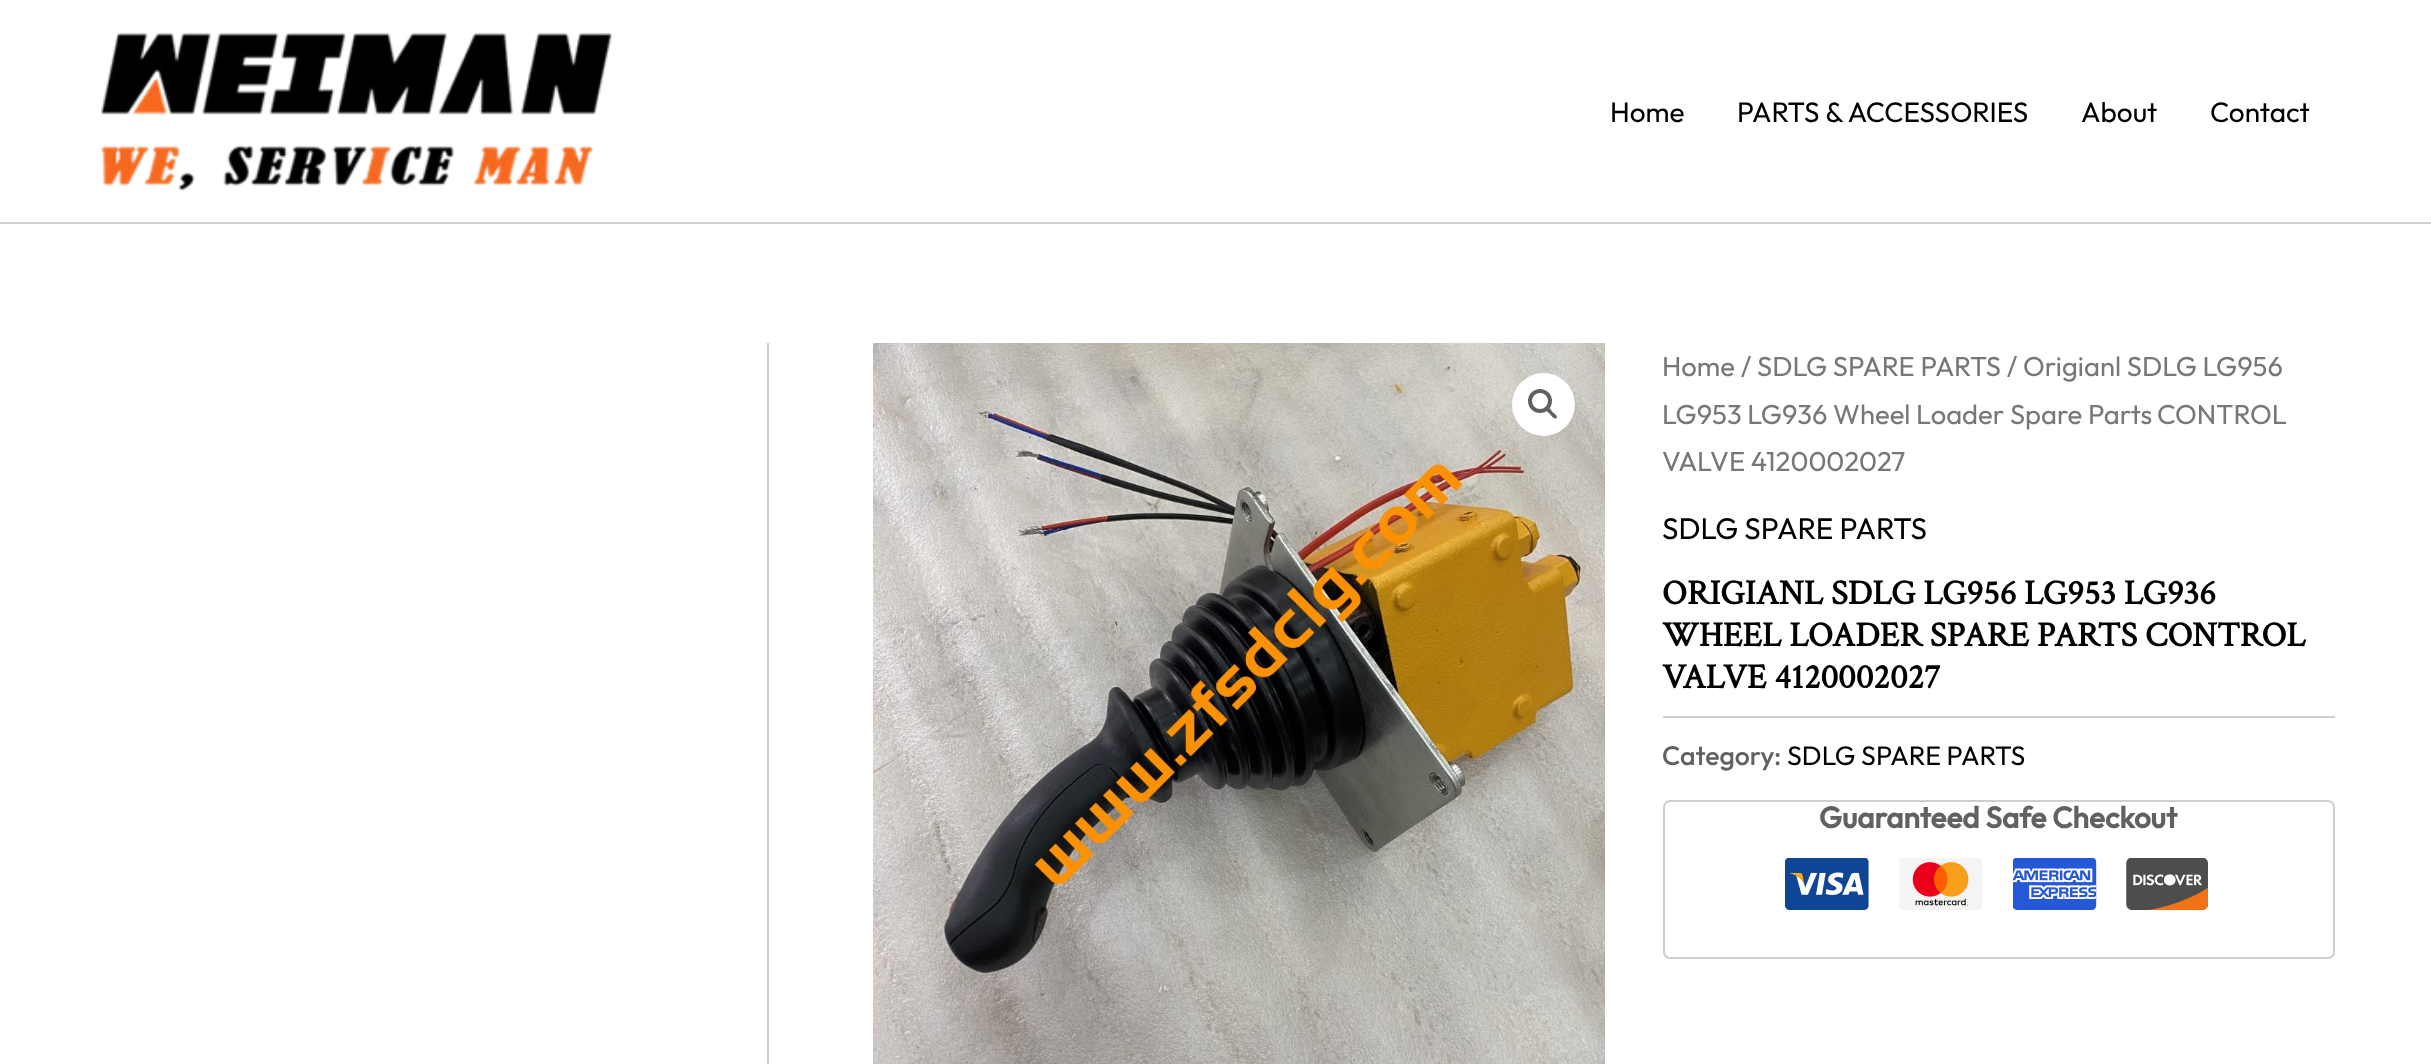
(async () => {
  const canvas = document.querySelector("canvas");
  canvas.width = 2431;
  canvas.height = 1064;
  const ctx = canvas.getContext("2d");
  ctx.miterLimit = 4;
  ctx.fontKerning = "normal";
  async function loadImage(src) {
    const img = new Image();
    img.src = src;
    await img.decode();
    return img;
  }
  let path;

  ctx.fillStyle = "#ffffff";
  ctx.fillRect(0, 0, 2431, 1064);
  ctx.fillStyle = "#cfcfcf";
  ctx.fillRect(0, 222, 2431, 2);
  ctx.drawImage(await loadImage("img/1.png"), 101, 32, 512, 159);
  ctx.fillRect(767, 343, 2, 721);
  ctx.drawImage(await loadImage("img/2.png"), 873, 343, 732, 721);
  ctx.fillStyle = "#ffffff";
  ctx.beginPath();
  ctx.arc(1543.5, 404.5, 31.5, 0, Math.PI * 2);
  ctx.fill();
  ctx.beginPath();
  ctx.arc(1540, 401, 10, 0, Math.PI * 2);
  ctx.strokeStyle = "#616161";
  ctx.lineWidth = 4;
  ctx.stroke();
  ctx.fillStyle = "#616161";
  path = new Path2D("M1546.5 408C1548.5 406 1551.5 410.5 1552.5 412C1553.5 413 1558.5 416 1556.5 418C1554.5 420 1551 415.5 1550 414C1549 413 1544.5 410 1546.5 408Z");
  ctx.fill(path);
  ctx.fillStyle = "#cfcfcf";
  ctx.fillRect(1663, 716, 672, 2);
  ctx.beginPath();
  ctx.roundRect(1664, 801, 670, 157, 6);
  ctx.strokeStyle = "#cfcfcf";
  ctx.lineWidth = 2;
  ctx.stroke();
  ctx.drawImage(await loadImage("img/3.png"), 1785, 858, 84, 52);
  ctx.drawImage(await loadImage("img/4.png"), 1899, 858, 83, 52);
  ctx.drawImage(await loadImage("img/5.png"), 2013, 858, 84, 52);
  ctx.drawImage(await loadImage("img/6.png"), 2126, 858, 82, 52);
  ctx.font = "28px Outfit";
  ctx.fillStyle = "#000000";
  for (const [text, x, y] of [
    ["Home", 1610, 122],
    ["PARTS & ACCESSORIES", 1737, 122],
    ["About", 2081, 122],
    ["Contact", 2210, 122],
  ]) {
    ctx.fillText(text, x, y);
  }
  ctx.font = "27.4px Outfit";
  ctx.fillStyle = "#777777";
  for (const [text, x, y] of [
    ["Home / SDLG SPARE PARTS / Origianl SDLG LG956", 1662, 376],
    ["LG953 LG936 Wheel Loader Spare Parts", 1662, 424],
    ["CONTROL", 2157, 424],
    ["VALVE 4120002027", 1662, 471],
  ]) {
    ctx.fillText(text, x, y);
  }
  ctx.font = "29.75px Outfit";
  ctx.fillStyle = "#000000";
  ctx.fillText("SDLG SPARE PARTS", 1662, 539);
  ctx.font = "bold 35px Crimson Text";
  for (const [text, x, y] of [
    ["ORIGIANL SDLG LG956 LG953 LG936", 1662, 604],
    ["WHEEL LOADER SPARE PARTS CONTROL", 1662, 646],
    ["VALVE 4120002027", 1662, 688],
  ]) {
    ctx.fillText(text, x, y);
  }
  ctx.font = "500 26.75px Outfit";
  ctx.fillStyle = "#616161";
  ctx.fillText("Category:", 1662, 765);
  ctx.font = "26.75px Outfit";
  ctx.fillStyle = "#000000";
  ctx.fillText("SDLG SPARE PARTS", 1787, 765);
  ctx.font = "bold 29.75px Outfit";
  ctx.fillStyle = "#616161";
  ctx.fillText("Guaranteed Safe Checkout", 1819, 828);
})();
